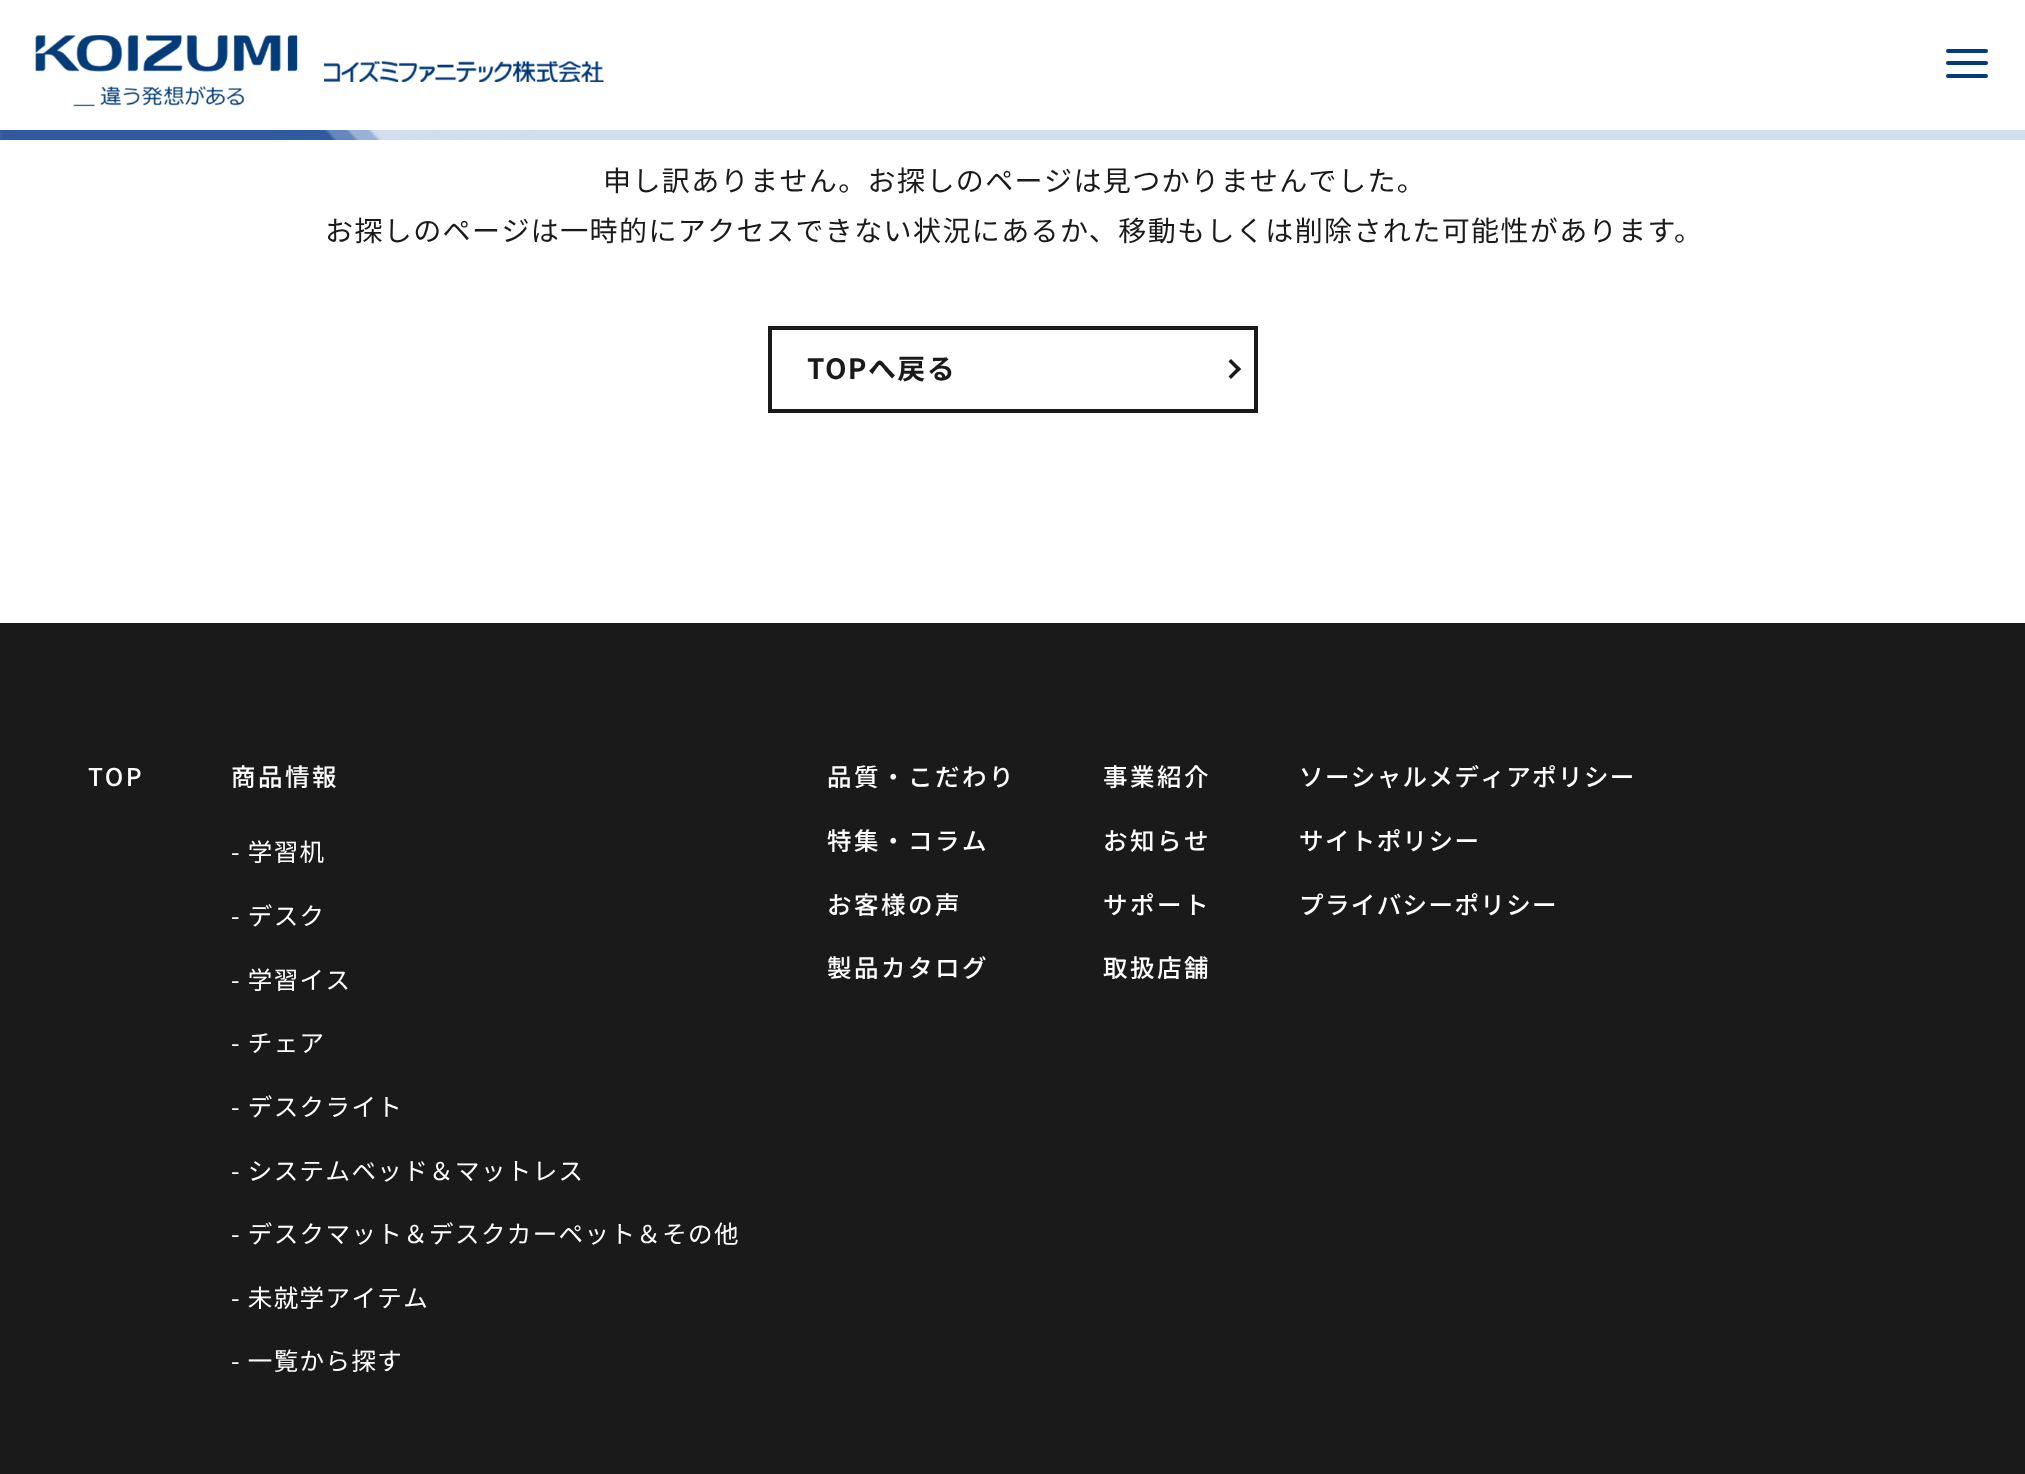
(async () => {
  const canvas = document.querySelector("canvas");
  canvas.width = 2025;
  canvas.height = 1474;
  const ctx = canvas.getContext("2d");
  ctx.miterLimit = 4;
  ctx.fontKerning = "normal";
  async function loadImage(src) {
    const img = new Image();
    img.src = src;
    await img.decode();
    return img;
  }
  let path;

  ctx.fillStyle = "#ffffff";
  ctx.fillRect(0, 0, 2025, 1474);
  ctx.drawImage(await loadImage("img/1.png"), 35, 35, 263, 72);
  ctx.drawImage(await loadImage("img/2.png"), 324, 61, 280, 21);
  ctx.fillStyle = "#043c79";
  ctx.beginPath();
  ctx.roundRect(1946, 49, 42, 4, 2);
  ctx.fill();
  ctx.beginPath();
  ctx.roundRect(1946, 61, 42, 4, 2);
  ctx.fill();
  ctx.beginPath();
  ctx.roundRect(1946, 74, 42, 4, 2);
  ctx.fill();
  ctx.drawImage(await loadImage("img/3.png"), 0, 130, 2025, 10);
  ctx.strokeStyle = "#1a1a1a";
  ctx.lineWidth = 4;
  ctx.strokeRect(770, 328, 486, 83);
  ctx.fillStyle = "#1a1a1a";
  path = new Path2D("M1231 359L1241 369L1238.5 371.5L1228.5 361.5Z");
  ctx.fill(path);
  path = new Path2D("M1238.5 366.5L1241 369L1231 379L1228.5 376.5Z");
  ctx.fill(path);
  ctx.fillRect(0, 623, 2025, 851);
  ctx.letterSpacing = "1.4px";
  ctx.font = "28px Noto Sans JP";
  ctx.fillText("申し訳ありません。お探しのページは見つかりませんでした。", 603, 191);
  ctx.fillText("お探しのページは一時的にアクセスできない状況にあるか、移動もしくは削除された可能性があります。", 325, 241);
  ctx.font = "bold 28px Noto Sans JP";
  ctx.fillText("TOPへ戻る", 807, 379);
  ctx.letterSpacing = "2.5px";
  ctx.font = "500 24.5px Noto Sans JP";
  ctx.fillStyle = "#ffffff";
  ctx.fillText("TOP", 88, 786);
  ctx.fillText("商品情報", 231, 786);
  ctx.letterSpacing = "1.4px";
  ctx.font = "24.5px Noto Sans JP";
  for (const [text, x, y] of [
    ["- 学習机", 231, 861],
    ["- デスク", 231, 925],
    ["- 学習イス", 231, 989],
    ["- チェア", 231, 1052],
    ["- デスクライト", 231, 1116],
    ["- システムベッド＆マットレス", 231, 1180],
    ["- デスクマット＆デスクカーペット＆その他", 231, 1243],
    ["- 未就学アイテム", 231, 1307],
    ["- 一覧から探す", 231, 1370],
  ]) {
    ctx.fillText(text, x, y);
  }
  ctx.letterSpacing = "2.5px";
  ctx.font = "500 24.5px Noto Sans JP";
  for (const [text, x, y] of [
    ["品質・こだわり", 827, 786],
    ["特集・コラム", 827, 850],
    ["お客様の声", 827, 914],
    ["製品カタログ", 827, 977],
    ["事業紹介", 1103, 786],
    ["お知らせ", 1103, 850],
    ["サポート", 1103, 914],
    ["取扱店舗", 1103, 977],
  ]) {
    ctx.fillText(text, x, y);
  }
  ctx.letterSpacing = "1.4px";
  for (const [text, x, y] of [
    ["ソーシャルメディアポリシー", 1299, 786],
    ["サイトポリシー", 1299, 850],
    ["プライバシーポリシー", 1299, 914],
  ]) {
    ctx.fillText(text, x, y);
  }
})();
